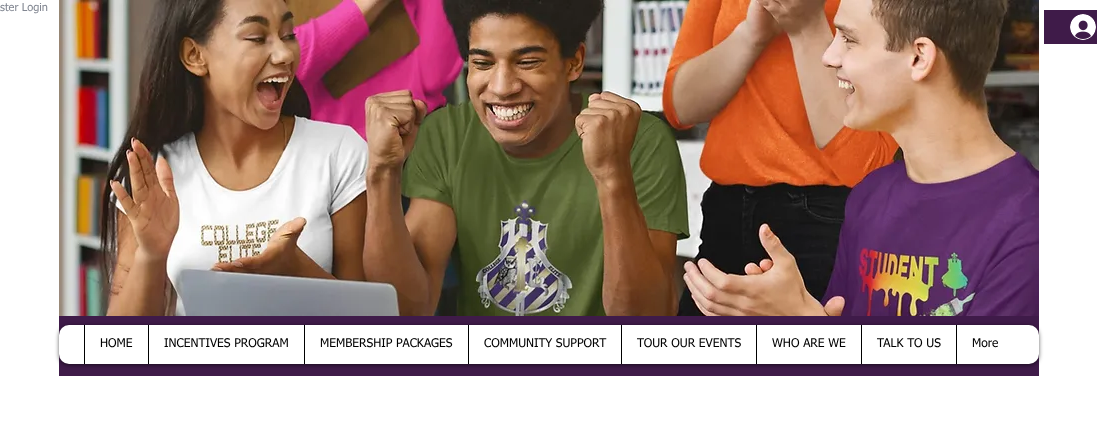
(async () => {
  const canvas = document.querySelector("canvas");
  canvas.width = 1097;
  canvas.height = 430;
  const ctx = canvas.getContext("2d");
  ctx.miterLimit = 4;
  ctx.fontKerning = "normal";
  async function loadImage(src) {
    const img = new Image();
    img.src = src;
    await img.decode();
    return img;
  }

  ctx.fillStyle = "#ffffff";
  ctx.fillRect(0, 0, 1097, 430);
  ctx.drawImage(await loadImage("img/1.png"), 59, 0, 980, 316);
  ctx.fillStyle = "#3f1b49";
  ctx.fillRect(1044, 10, 53, 34);
  ctx.drawImage(await loadImage("img/2.png"), 1070, 14, 26, 26);
  ctx.fillRect(59, 316, 980, 60);
  ctx.fillStyle = "rgba(0, 0, 0, 0.6)";
  ctx.filter = "blur(2px)";
  ctx.beginPath();
  ctx.roundRect(59, 326, 980, 39, 10);
  ctx.fill();
  ctx.filter = "none";
  ctx.fillStyle = "#ffffff";
  ctx.beginPath();
  ctx.roundRect(59, 325, 980, 39, 10);
  ctx.fill();
  for (const [x, y, w, h, color] of [
    [84, 325, 1, 39, "#000000"],
    [148, 325, 1, 39, "#000000"],
    [304, 325, 1, 39, "#000000"],
    [468, 325, 1, 39, "#000000"],
    [621, 325, 1, 39, "#000000"],
    [756, 325, 1, 39, "#000000"],
    [861, 325, 1, 39, "#000000"],
    [956, 325, 1, 39, "#000000"],
  ]) {
    ctx.fillStyle = color;
    ctx.fillRect(x, y, w, h);
  }
  ctx.font = "11px tahoma";
  ctx.fillStyle = "#818691";
  ctx.fillText("ster Login", 0, 11);
  ctx.font = "12px tahoma";
  ctx.fillStyle = "#000000";
  for (const [text, x, y] of [
    ["HOME", 100, 347],
    ["INCENTIVES PROGRAM", 164, 347],
    ["MEMBERSHIP PACKAGES", 320, 347],
    ["COMMUNITY SUPPORT", 484, 347],
    ["TOUR OUR EVENTS", 637, 347],
    ["WHO ARE WE", 772, 347],
    ["TALK TO US", 877, 347],
    ["More", 972, 347],
  ]) {
    ctx.fillText(text, x, y);
  }
})();
